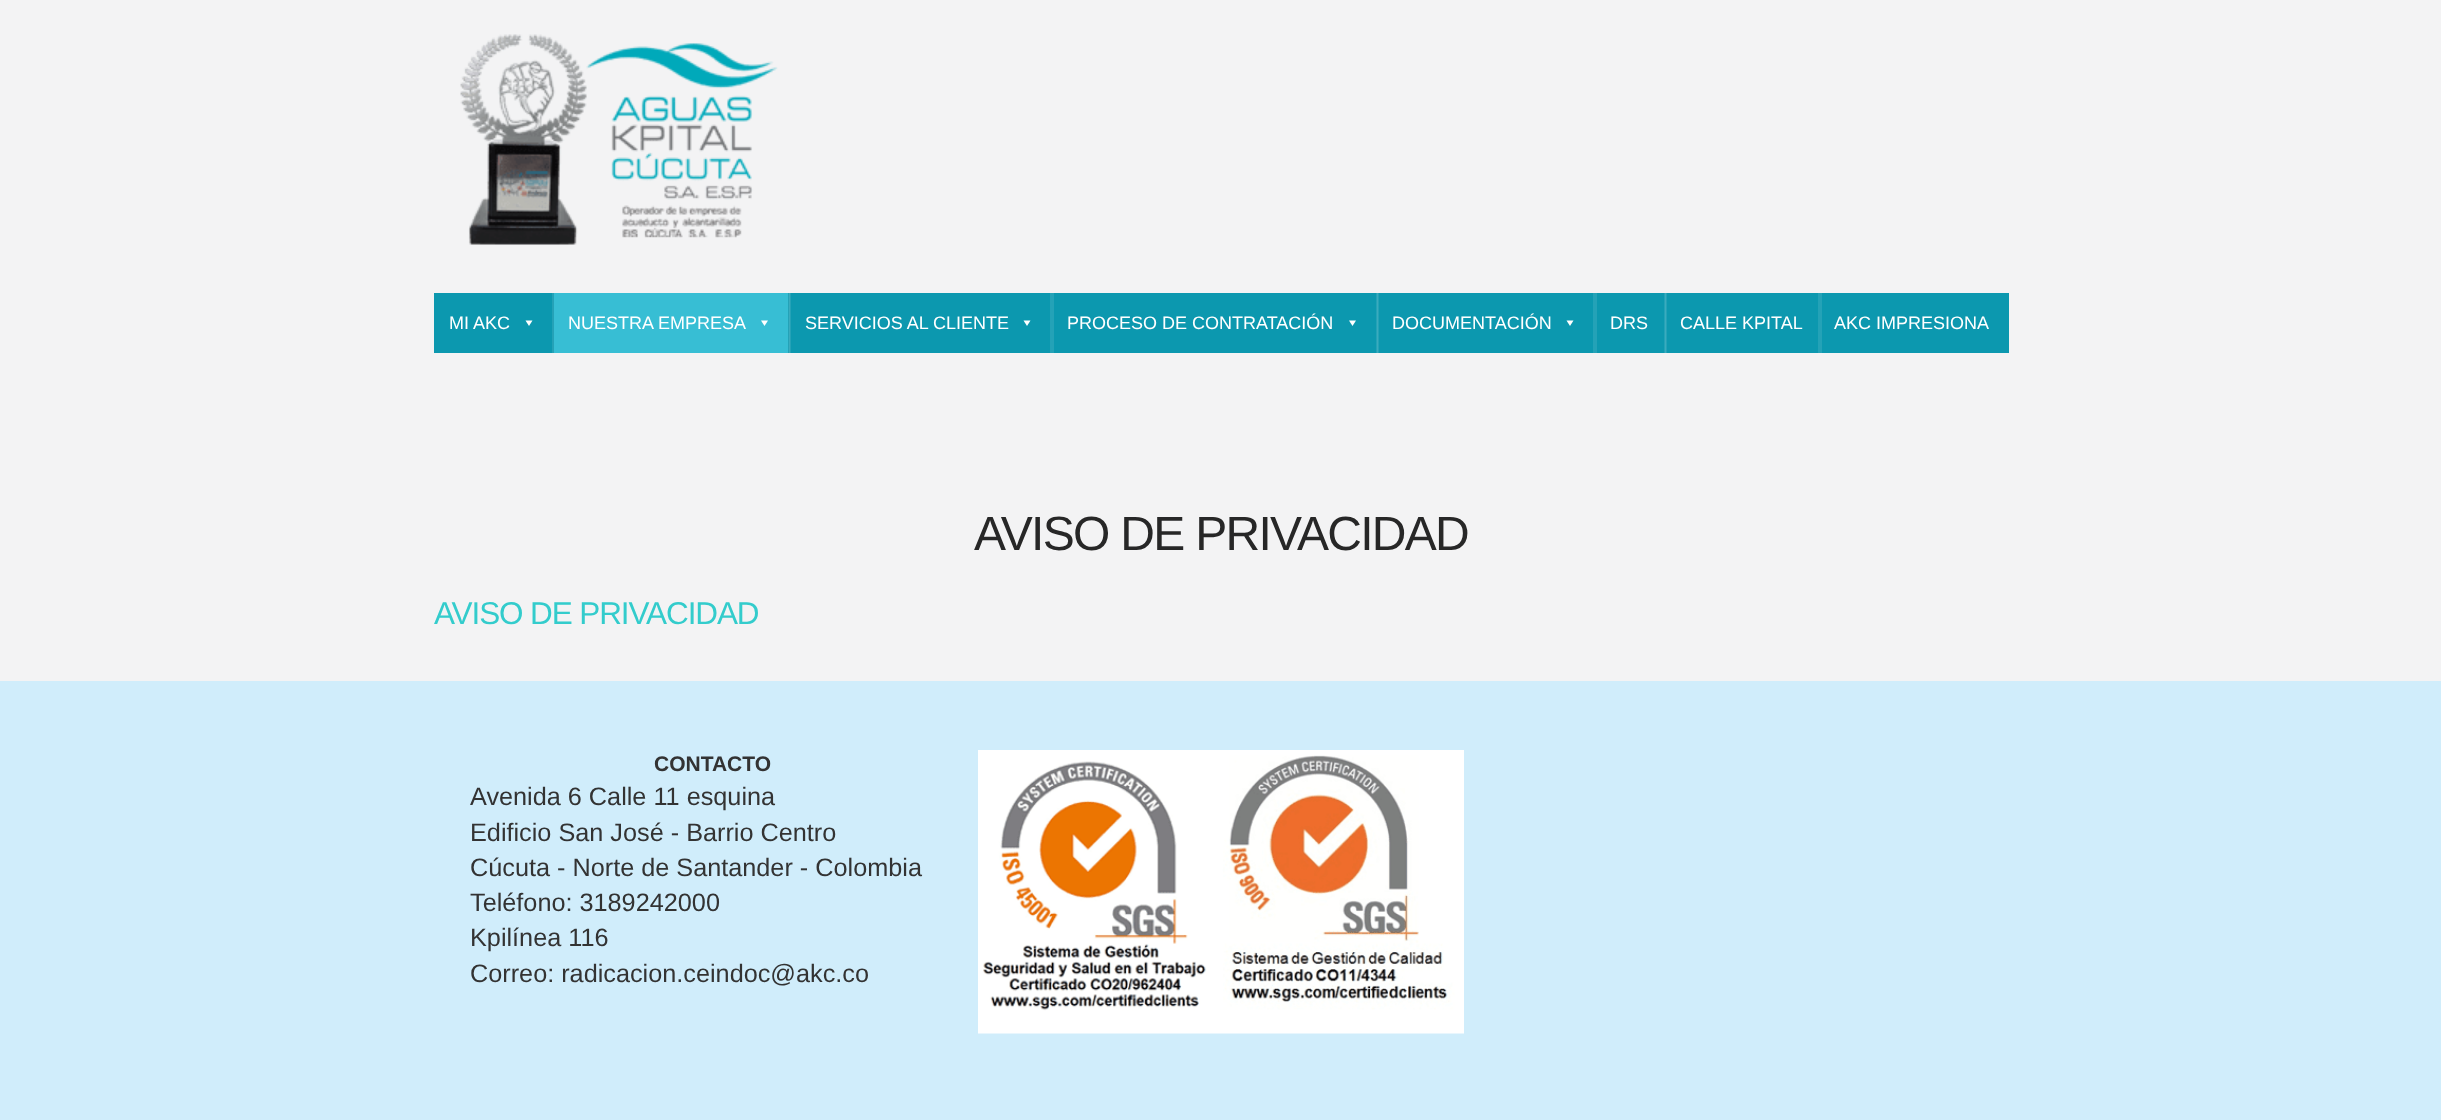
(async () => {
  const canvas = document.querySelector("canvas");
  canvas.width = 2441;
  canvas.height = 1120;
  const ctx = canvas.getContext("2d");
  ctx.miterLimit = 4;
  ctx.fontKerning = "normal";
  async function loadImage(src) {
    const img = new Image();
    img.src = src;
    await img.decode();
    return img;
  }
  let path;

  ctx.fillStyle = "#f3f3f4";
  ctx.fillRect(0, 0, 2441, 1120);
  ctx.drawImage(await loadImage("img/1.png"), 460, 34, 318, 211);
  for (const [x, y, w, h, color] of [
    [434, 293, 1575, 60, "#0c98af"],
    [1376, 293, 1, 60, "#24a2b7"],
    [788, 293, 1, 60, "#24a2b7"],
    [1664, 293, 1, 60, "#24a2b7"],
  ]) {
    ctx.fillStyle = color;
    ctx.fillRect(x, y, w, h);
  }
  ctx.fillStyle = "#ffffff";
  path = new Path2D("M532.5 320.5L529 326L525.5 320.5Z");
  ctx.fill(path);
  ctx.fillStyle = "#24a2b7";
  ctx.fillRect(552, 293, 2, 60);
  ctx.fillStyle = "#37bed4";
  ctx.fillRect(554, 293, 234, 60);
  ctx.fillStyle = "#ffffff";
  path = new Path2D("M768 320.5L764.5 326L761 320.5Z");
  ctx.fill(path);
  ctx.fillStyle = "#24a2b7";
  ctx.fillRect(790, 293, 1, 60);
  ctx.fillStyle = "#3aabbe";
  ctx.fillRect(789, 293, 1, 60);
  ctx.fillStyle = "#ffffff";
  path = new Path2D("M1030.5 320.5L1027 326L1023.5 320.5Z");
  ctx.fill(path);
  ctx.fillStyle = "#24a2b7";
  ctx.fillRect(1050, 293, 4, 60);
  ctx.fillStyle = "#ffffff";
  path = new Path2D("M1356 320.5L1352.5 326L1349 320.5Z");
  ctx.fill(path);
  ctx.fillStyle = "#24a2b7";
  ctx.fillRect(1378, 293, 1, 60);
  ctx.fillStyle = "#3aabbe";
  ctx.fillRect(1377, 293, 1, 60);
  ctx.fillStyle = "#ffffff";
  path = new Path2D("M1573.5 320.5L1570 326L1566.5 320.5Z");
  ctx.fill(path);
  for (const [x, y, w, h, color] of [
    [1593, 293, 4, 60, "#24a2b7"],
    [1666, 293, 1, 60, "#24a2b7"],
    [1665, 293, 1, 60, "#3aabbe"],
    [1818, 293, 4, 60, "#24a2b7"],
    [0, 681, 2441, 439, "#d0edfb"],
  ]) {
    ctx.fillStyle = color;
    ctx.fillRect(x, y, w, h);
  }
  ctx.drawImage(await loadImage("img/2.png"), 978, 750, 486, 284);
  ctx.font = "18px Liberation Sans";
  ctx.fillStyle = "#ffffff";
  for (const [text, x, y] of [
    ["MI AKC", 449, 329],
    ["NUESTRA EMPRESA", 568, 329],
    ["SERVICIOS AL CLIENTE", 805, 329],
    ["PROCESO DE CONTRATACIÓN", 1067, 329],
    ["DOCUMENTACIÓN", 1392, 329],
    ["DRS", 1610, 329],
    ["CALLE KPITAL", 1680, 329],
    ["AKC IMPRESIONA", 1834, 329],
  ]) {
    ctx.fillText(text, x, y);
  }
  ctx.letterSpacing = "-1.7px";
  ctx.font = "48px Liberation Sans";
  ctx.fillStyle = "#272727";
  ctx.fillText("AVISO DE PRIVACIDAD", 974, 550);
  ctx.letterSpacing = "-1.1px";
  ctx.font = "31.5px Liberation Sans";
  ctx.fillStyle = "#33cccc";
  ctx.fillText("AVISO DE PRIVACIDAD", 434, 624);
  ctx.letterSpacing = "0px";
  ctx.font = "bold 21px Liberation Sans";
  ctx.fillStyle = "#333333";
  ctx.fillText("CONTACTO", 654, 771);
  ctx.font = "25.25px Liberation Sans";
  for (const [text, x, y] of [
    ["Avenida 6 Calle 11 esquina", 470, 805],
    ["Edificio San José - Barrio Centro", 470, 841],
    ["Cúcuta - Norte de Santander - Colombia", 470, 876],
    ["Teléfono: 3189242000", 470, 911],
    ["Kpilínea 116", 470, 946],
    ["Correo: radicacion.ceindoc@akc.co", 470, 982],
  ]) {
    ctx.fillText(text, x, y);
  }
})();
